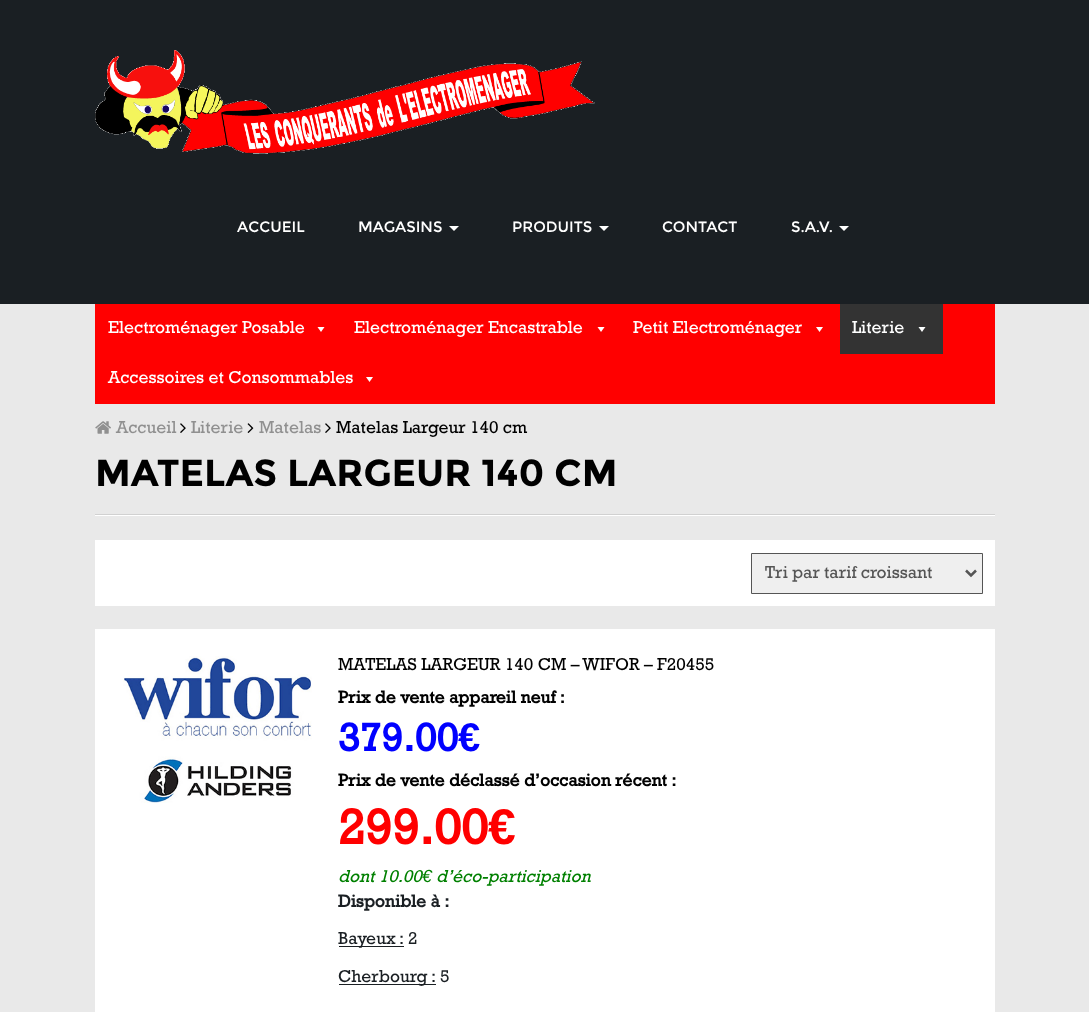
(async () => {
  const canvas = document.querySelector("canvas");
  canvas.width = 1089;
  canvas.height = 1012;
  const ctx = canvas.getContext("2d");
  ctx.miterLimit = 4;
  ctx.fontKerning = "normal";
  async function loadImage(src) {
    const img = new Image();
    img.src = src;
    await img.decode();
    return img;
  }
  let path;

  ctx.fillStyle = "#e9e9e9";
  ctx.fillRect(0, 0, 1089, 1012);
  ctx.fillStyle = "#1a1f23";
  ctx.fillRect(0, 0, 1089, 304);
  ctx.drawImage(await loadImage("img/1.png"), 95, 50, 500, 104);
  ctx.fillStyle = "#ffffff";
  path = new Path2D("M449 226H459L454 231Z");
  ctx.fill(path);
  path = new Path2D("M599 226H609L604 231Z");
  ctx.fill(path);
  path = new Path2D("M839 226H849L844 231Z");
  ctx.fill(path);
  ctx.fillStyle = "#ff0000";
  ctx.fillRect(95, 304, 900, 100);
  ctx.fillStyle = "#ffffff";
  path = new Path2D("M324.5 327L321 332L317.5 327Z");
  ctx.fill(path);
  path = new Path2D("M604.5 327L601 332L597.5 327Z");
  ctx.fill(path);
  path = new Path2D("M823 327L819.5 332L816 327Z");
  ctx.fill(path);
  ctx.fillStyle = "#333333";
  ctx.fillRect(840, 304, 103, 50);
  ctx.fillStyle = "#ffffff";
  path = new Path2D("M925.5 327L922 332L918.5 327Z");
  ctx.fill(path);
  path = new Path2D("M373 377L369.5 382L366 377Z");
  ctx.fill(path);
  ctx.drawImage(await loadImage("img/2.png"), 95, 421, 16, 13);
  ctx.drawImage(await loadImage("img/3.png"), 180, 423, 6, 10);
  ctx.drawImage(await loadImage("img/4.png"), 247, 423, 7, 10);
  ctx.drawImage(await loadImage("img/3.png"), 325, 423, 6, 10);
  for (const [x, y, w, h, color] of [
    [95, 515, 900, 1, "#ffffff"],
    [95, 514, 900, 1, "#d1d1d1"],
    [95, 540, 900, 66, "#ffffff"],
  ]) {
    ctx.fillStyle = color;
    ctx.fillRect(x, y, w, h);
  }
  ctx.fillStyle = "#efefef";
  ctx.beginPath();
  ctx.rect(751.5, 553.5, 231, 40);
  ctx.fill();
  ctx.strokeStyle = "#555555";
  ctx.stroke();
  path = new Path2D("M966 570.5L971 575.5L976 570.5");
  ctx.lineWidth = 2.5;
  ctx.stroke(path);
  ctx.fillStyle = "#ffffff";
  ctx.fillRect(95, 629, 900, 383);
  ctx.drawImage(await loadImage("img/5.png"), 123, 656, 189, 147);
  ctx.fillStyle = "#1a1f23";
  ctx.fillRect(339, 946, 65, 1);
  ctx.fillRect(339, 984, 97, 1);
  ctx.font = "15px Montserrat";
  ctx.fillStyle = "#ffffff";
  for (const [text, x, y] of [
    ["ACCUEIL", 237, 232],
    ["MAGASINS", 358, 232],
    ["PRODUITS", 512, 232],
    ["CONTACT", 662, 232],
    ["S.A.V.", 791, 232],
  ]) {
    ctx.fillText(text, x, y);
  }
  ctx.font = "17.5px Rockwell";
  for (const [text, x, y] of [
    ["Electroménager Posable", 108, 333],
    ["Electroménager Encastrable", 354, 333],
    ["Petit Electroménager", 633, 333],
    ["Literie", 852, 333],
    ["Accessoires et Consommables", 108, 383],
  ]) {
    ctx.fillText(text, x, y);
  }
  ctx.fillStyle = "#909090";
  for (const [text, x, y] of [
    ["Accueil", 116, 433],
    ["Literie", 191, 433],
    ["Matelas", 259, 433],
  ]) {
    ctx.fillText(text, x, y);
  }
  ctx.fillStyle = "#000000";
  ctx.fillText("Matelas Largeur 140 cm", 336, 433);
  ctx.font = "bold 37.5px Montserrat";
  ctx.fillText("MATELAS LARGEUR 140 CM", 95, 486);
  ctx.font = "17.5px Rockwell";
  ctx.fillStyle = "#555555";
  ctx.fillText("Tri par tarif croissant", 765, 578);
  ctx.fillStyle = "#000000";
  ctx.fillText("MATELAS LARGEUR 140 CM – WIFOR – F20455", 338, 670);
  ctx.font = "bold 17.5px Rockwell";
  ctx.fillText("Prix de vente appareil neuf :", 338, 703);
  ctx.font = "bold 40px Rockwell";
  ctx.fillStyle = "#0000ff";
  ctx.fillText("379.00", 338, 751);
  ctx.font = "bold 40px Liberation Sans";
  ctx.fillText("€", 458, 751);
  ctx.font = "bold 17.5px Rockwell";
  ctx.fillStyle = "#000000";
  ctx.fillText("Prix de vente déclassé d’occasion récent :", 338, 786);
  ctx.font = "bold 50px Rockwell";
  ctx.fillStyle = "#ff0000";
  ctx.fillText("299.00", 338, 844);
  ctx.font = "bold 50px Liberation Sans";
  ctx.fillText("€", 488, 844);
  ctx.font = "italic 17.5px Rockwell";
  ctx.fillStyle = "#008000";
  ctx.fillText("dont 10.00", 338, 882);
  ctx.font = "italic 17.5px Liberation Sans";
  ctx.fillText("€", 422, 882);
  ctx.font = "italic 17.5px Rockwell";
  ctx.fillText("d’éco-participation", 436, 882);
  ctx.font = "bold 17.5px Rockwell";
  ctx.fillStyle = "#1a1f23";
  ctx.fillText("Disponible à :", 338, 907);
  ctx.wordSpacing = "-1px";
  ctx.font = "17.5px Rockwell";
  ctx.fillText("Bayeux :", 338, 944);
  ctx.wordSpacing = "0px";
  ctx.fillText("2", 408, 944);
  ctx.wordSpacing = "-1px";
  ctx.fillText("Cherbourg :", 338, 982);
  ctx.wordSpacing = "0px";
  ctx.fillText("5", 440, 982);
})();
